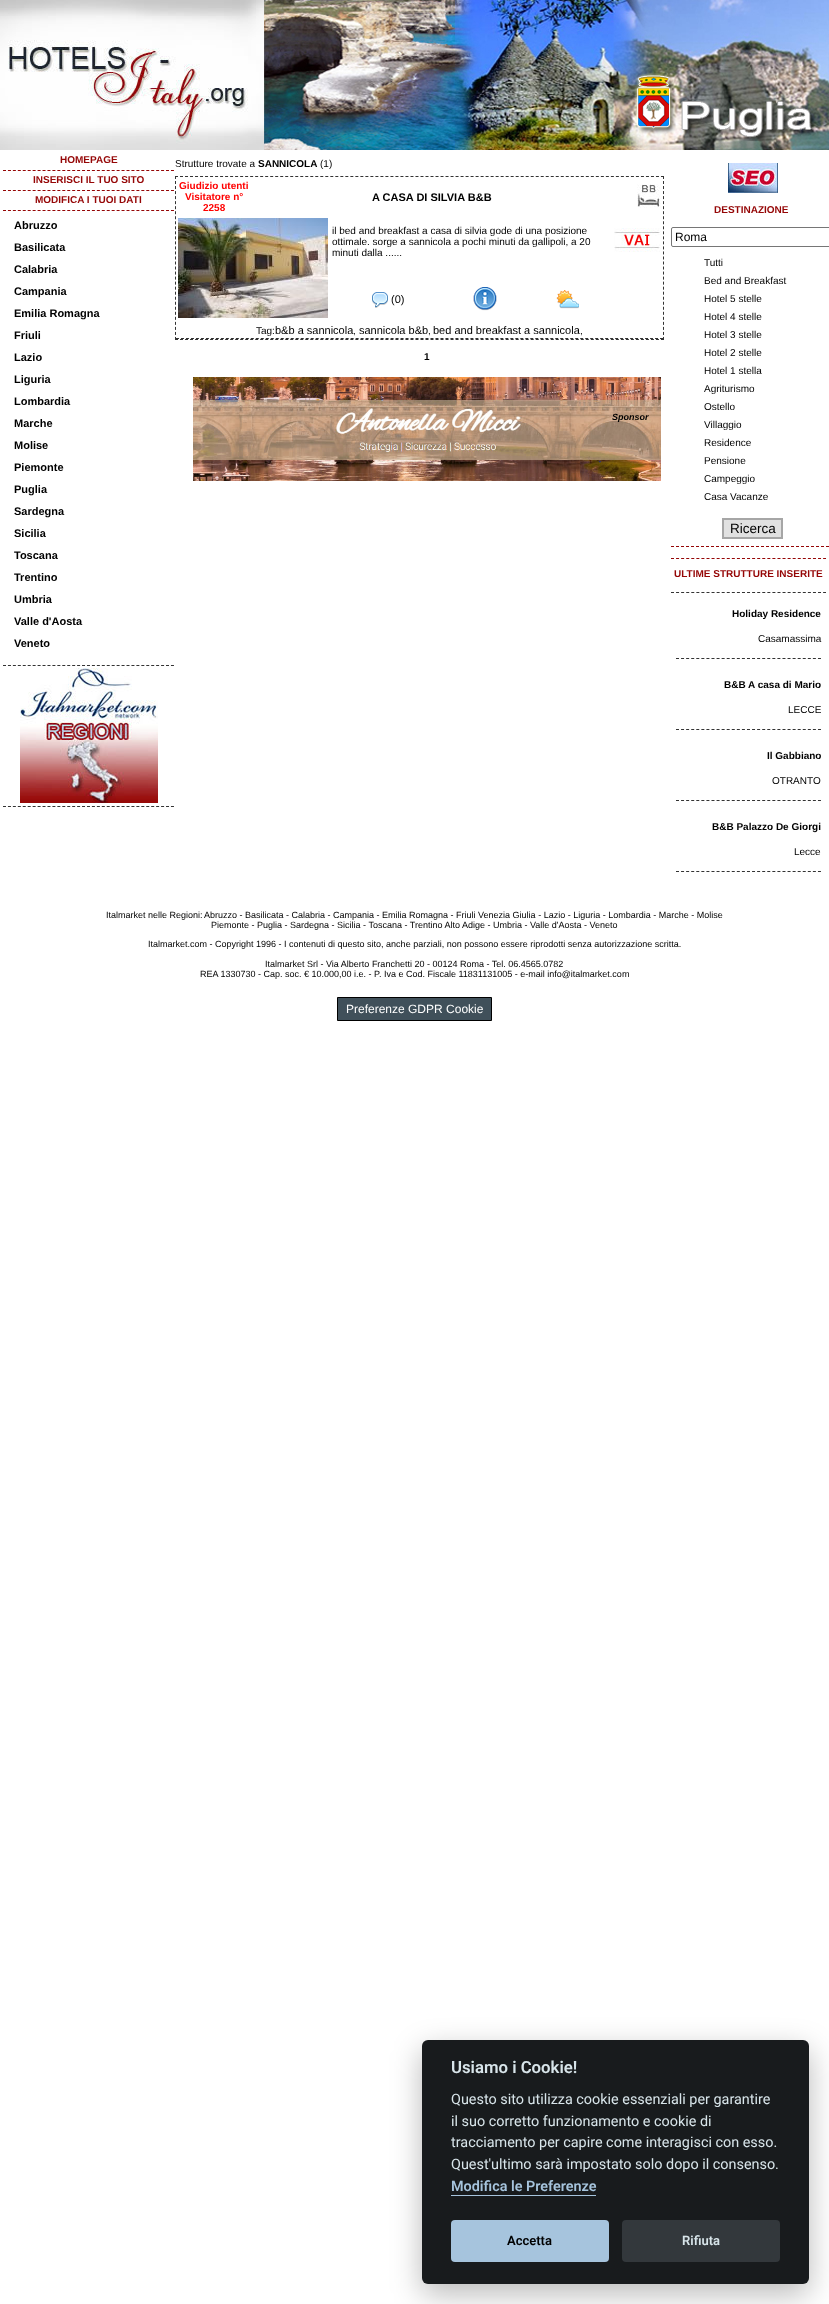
(async () => {
  const canvas = document.querySelector("canvas");
  canvas.width = 829;
  canvas.height = 2304;
  const ctx = canvas.getContext("2d");
  ctx.miterLimit = 4;
  ctx.fontKerning = "normal";
  async function loadImage(src) {
    const img = new Image();
    img.src = src;
    await img.decode();
    return img;
  }
  let path;

  ctx.fillStyle = "#ffffff";
  ctx.fillRect(0, 0, 829, 2304);
  ctx.drawImage(await loadImage("img/2.png"), 0, 0, 829, 150);
  ctx.drawImage(await loadImage("img/1.png"), 634, 72, 182, 69);
  path = new Path2D("M3 170.5H174");
  ctx.strokeStyle = "#950606";
  ctx.setLineDash([3, 1.94]);
  ctx.stroke(path);
  path = new Path2D("M3 190.5H174");
  ctx.stroke(path);
  path = new Path2D("M3 210.5H174");
  ctx.stroke(path);
  path = new Path2D("M3 665.5H174");
  ctx.strokeStyle = "#333333";
  ctx.stroke(path);
  path = new Path2D("M3 806.5H174");
  ctx.stroke(path);
  ctx.drawImage(await loadImage("img/3.png"), 20, 668, 138, 135);
  path = new Path2D("M175 176.5H664");
  ctx.setLineDash([3, 2.01]);
  ctx.stroke(path);
  path = new Path2D("M663.5 176V340");
  ctx.setLineDash([3, 2.03]);
  ctx.stroke(path);
  path = new Path2D("M175 339.5H664");
  ctx.setLineDash([3, 2.01]);
  ctx.stroke(path);
  path = new Path2D("M175.5 176V340");
  ctx.setLineDash([3, 2.03]);
  ctx.stroke(path);
  ctx.drawImage(await loadImage("img/4.png"), 637, 184, 24, 24);
  ctx.drawImage(await loadImage("img/5.png"), 178, 218, 150, 100);
  ctx.drawImage(await loadImage("img/6.png"), 614, 228, 47, 24);
  ctx.drawImage(await loadImage("img/7.png"), 372, 292, 16, 16);
  ctx.drawImage(await loadImage("img/8.png"), 473, 287, 24, 24);
  ctx.drawImage(await loadImage("img/9.png"), 556, 290, 23, 19);
  path = new Path2D("M176 338.5H663");
  ctx.setLineDash([3, 1.99]);
  ctx.stroke(path);
  ctx.drawImage(await loadImage("img/10.png"), 193, 377, 468, 104);
  ctx.drawImage(await loadImage("img/11.png"), 728, 163, 50, 30);
  ctx.beginPath();
  ctx.roundRect(671.5, 227.5, 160, 19, 1.5);
  ctx.strokeStyle = "#767676";
  ctx.setLineDash([]);
  ctx.stroke();
  ctx.fillStyle = "#e1e1e1";
  ctx.beginPath();
  ctx.rect(723, 519, 59, 19);
  ctx.fill();
  ctx.strokeStyle = "#a6a6a6";
  ctx.lineWidth = 2;
  ctx.stroke();
  path = new Path2D("M671 546.5H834");
  ctx.strokeStyle = "#950606";
  ctx.lineWidth = 1;
  ctx.setLineDash([3, 2]);
  ctx.stroke(path);
  path = new Path2D("M671 558.5H826");
  ctx.setLineDash([3, 2.07]);
  ctx.stroke(path);
  path = new Path2D("M671 592.5H826");
  ctx.strokeStyle = "#333333";
  ctx.stroke(path);
  path = new Path2D("M676 658.5H821");
  ctx.stroke(path);
  path = new Path2D("M676 729.5H821");
  ctx.stroke(path);
  path = new Path2D("M676 800.5H821");
  ctx.stroke(path);
  path = new Path2D("M676 871.5H821");
  ctx.stroke(path);
  ctx.fillStyle = "#40505a";
  ctx.beginPath();
  ctx.rect(337.5, 997.5, 154, 23);
  ctx.fill();
  ctx.strokeStyle = "#000000";
  ctx.setLineDash([]);
  ctx.stroke();
  ctx.fillStyle = "rgba(2, 2, 3, 0.28)";
  ctx.filter = "blur(15px)";
  ctx.beginPath();
  ctx.roundRect(422, 2050, 387, 244, 6);
  ctx.fill();
  ctx.filter = "none";
  ctx.fillStyle = "#181b1d";
  ctx.beginPath();
  ctx.roundRect(422, 2040, 387, 244, 6);
  ctx.fill();
  ctx.fillStyle = "#a6c4dd";
  ctx.fillRect(451, 2195, 145, 1);
  ctx.beginPath();
  ctx.roundRect(451, 2220, 158, 42, 4);
  ctx.fill();
  ctx.fillStyle = "#33383c";
  ctx.beginPath();
  ctx.roundRect(622, 2220, 158, 42, 4);
  ctx.fill();
  ctx.font = "bold 10px Liberation Sans";
  ctx.fillStyle = "#950606";
  for (const [text, x, y] of [
    ["HOMEPAGE", 60, 163],
    ["INSERISCI IL TUO SITO", 33, 183],
    ["MODIFICA I TUOI DATI", 35, 203],
  ]) {
    ctx.fillText(text, x, y);
  }
  ctx.font = "bold 11px Liberation Sans";
  ctx.fillStyle = "#000000";
  for (const [text, x, y] of [
    ["Abruzzo", 14, 229],
    ["Basilicata", 14, 251],
    ["Calabria", 14, 273],
    ["Campania", 14, 295],
    ["Emilia Romagna", 14, 317],
    ["Friuli", 14, 339],
    ["Lazio", 14, 361],
    ["Liguria", 14, 383],
    ["Lombardia", 14, 405],
    ["Marche", 14, 427],
    ["Molise", 14, 449],
    ["Piemonte", 14, 471],
    ["Puglia", 14, 493],
    ["Sardegna", 14, 515],
    ["Sicilia", 14, 537],
    ["Toscana", 14, 559],
    ["Trentino", 14, 581],
    ["Umbria", 14, 603],
    ["Valle d'Aosta", 14, 625],
    ["Veneto", 14, 647],
  ]) {
    ctx.fillText(text, x, y);
  }
  ctx.font = "10px Liberation Sans";
  ctx.fillText("Strutture trovate a", 175, 167);
  ctx.font = "bold 10px Liberation Sans";
  ctx.fillText("SANNICOLA", 258, 167);
  ctx.font = "10px Liberation Sans";
  ctx.fillText("(1)", 320, 167);
  ctx.font = "bold 10px Liberation Sans";
  ctx.fillStyle = "#ff0000";
  for (const [text, x, y] of [
    ["Giudizio utenti", 179, 189],
    ["Visitatore n°", 185, 200],
    ["2258", 203, 211],
  ]) {
    ctx.fillText(text, x, y);
  }
  ctx.font = "bold 11px Liberation Sans";
  ctx.fillStyle = "#000000";
  ctx.fillText("A CASA DI SILVIA B&B", 372, 201);
  ctx.font = "10px Liberation Sans";
  for (const [text, x, y] of [
    ["il bed and breakfast a casa di silvia gode di una posizione", 332, 234],
    ["ottimale. sorge a sannicola a pochi minuti da gallipoli, a 20", 332, 245],
    ["minuti dalla ......", 332, 256],
  ]) {
    ctx.fillText(text, x, y);
  }
  ctx.font = "11px Liberation Sans";
  ctx.fillText("(0)", 391, 303);
  ctx.font = "10px Liberation Sans";
  ctx.fillText("Tag:", 256, 334);
  ctx.font = "11px Liberation Sans";
  ctx.fillText("b&b a sannicola", 275, 334);
  ctx.font = "10px Liberation Sans";
  ctx.fillText(",", 353, 334);
  ctx.font = "11px Liberation Sans";
  ctx.fillText("sannicola b&b", 359, 334);
  ctx.font = "10px Liberation Sans";
  ctx.fillText(",", 428, 334);
  ctx.font = "11px Liberation Sans";
  ctx.fillText("bed and breakfast a sannicola", 433, 334);
  ctx.font = "10px Liberation Sans";
  ctx.fillText(",", 580, 334);
  ctx.font = "bold 10px Liberation Sans";
  ctx.fillText("1", 424, 360);
  ctx.font = "italic bold 9px Liberation Sans";
  ctx.fillText("Sponsor", 612, 420);
  ctx.font = "bold 10px Liberation Sans";
  ctx.fillStyle = "#950606";
  ctx.fillText("DESTINAZIONE", 714, 213);
  ctx.font = "12px Liberation Sans";
  ctx.fillStyle = "#000000";
  ctx.fillText("Roma", 675, 241);
  ctx.font = "10px Liberation Sans";
  for (const [text, x, y] of [
    ["Tutti", 704, 266],
    ["Bed and Breakfast", 704, 284],
    ["Hotel 5 stelle", 704, 302],
    ["Hotel 4 stelle", 704, 320],
    ["Hotel 3 stelle", 704, 338],
    ["Hotel 2 stelle", 704, 356],
    ["Hotel 1 stella", 704, 374],
    ["Agriturismo", 704, 392],
    ["Ostello", 704, 410],
    ["Villaggio", 704, 428],
    ["Residence", 704, 446],
    ["Pensione", 704, 464],
    ["Campeggio", 704, 482],
    ["Casa Vacanze", 704, 500],
  ]) {
    ctx.fillText(text, x, y);
  }
  ctx.font = "13.5px Liberation Sans";
  ctx.fillText("Ricerca", 730, 533);
  ctx.font = "bold 10px Liberation Sans";
  ctx.fillStyle = "#950606";
  ctx.fillText("ULTIME STRUTTURE INSERITE", 674, 577);
  ctx.fillStyle = "#000000";
  ctx.fillText("Holiday Residence", 732, 617);
  ctx.font = "10px Liberation Sans";
  ctx.fillText("Casamassima", 758, 642);
  ctx.font = "bold 10px Liberation Sans";
  ctx.fillText("B&B A casa di Mario", 724, 688);
  ctx.font = "10px Liberation Sans";
  ctx.fillText("LECCE", 788, 713);
  ctx.font = "bold 10px Liberation Sans";
  ctx.fillText("Il Gabbiano", 767, 759);
  ctx.font = "10px Liberation Sans";
  ctx.fillText("OTRANTO", 772, 784);
  ctx.font = "bold 10px Liberation Sans";
  ctx.fillText("B&B Palazzo De Giorgi", 712, 830);
  ctx.font = "10px Liberation Sans";
  ctx.fillText("Lecce", 794, 855);
  ctx.font = "9px Liberation Sans";
  for (const [text, x, y] of [
    ["Italmarket nelle Regioni:", 106, 918],
    ["Abruzzo - Basilicata - Calabria - Campania - Emilia Romagna - Friuli Venezia Giulia - Lazio - Liguria - Lombardia - Marche - Molise", 204, 918],
    ["Piemonte - Puglia - Sardegna - Sicilia - Toscana - Trentino Alto Adige - Umbria - Valle d'Aosta - Veneto", 211, 928],
    ["Italmarket.com - Copyright 1996 - I contenuti di questo sito, anche parziali, non possono essere riprodotti senza autorizzazione scritta.", 148, 947],
    ["Italmarket Srl - Via Alberto Franchetti 20 - 00124 Roma - Tel. 06.4565.0782", 265, 967],
    ["REA 1330730 - Cap. soc. € 10.000,00 i.e. - P. Iva e Cod. Fiscale 11831131005 - e-mail info@italmarket.com", 200, 977],
  ]) {
    ctx.fillText(text, x, y);
  }
  ctx.font = "12px Liberation Sans";
  ctx.fillStyle = "#ffffff";
  ctx.fillText("Preferenze GDPR Cookie", 346, 1013);
  ctx.font = "600 16.75px Roboto";
  ctx.fillStyle = "#d8e5ea";
  ctx.fillText("Usiamo i Cookie!", 451, 2073);
  ctx.font = "14.4px Roboto";
  for (const [text, x, y] of [
    ["Questo sito utilizza cookie essenziali per garantire", 451, 2104],
    ["il suo corretto funzionamento e cookie di", 451, 2126],
    ["tracciamento per capire come interagisci con esso.", 451, 2147],
    ["Quest'ultimo sarà impostato solo dopo il consenso.", 451, 2169],
  ]) {
    ctx.fillText(text, x, y);
  }
  ctx.font = "600 14.4px Roboto";
  ctx.fillStyle = "#a6c4dd";
  ctx.fillText("Modifica le Preferenze", 451, 2191);
  ctx.font = "600 13px Roboto";
  ctx.fillStyle = "#000000";
  ctx.fillText("Accetta", 507, 2245);
  ctx.fillStyle = "#d8e5ea";
  ctx.fillText("Rifiuta", 682, 2245);
})();
